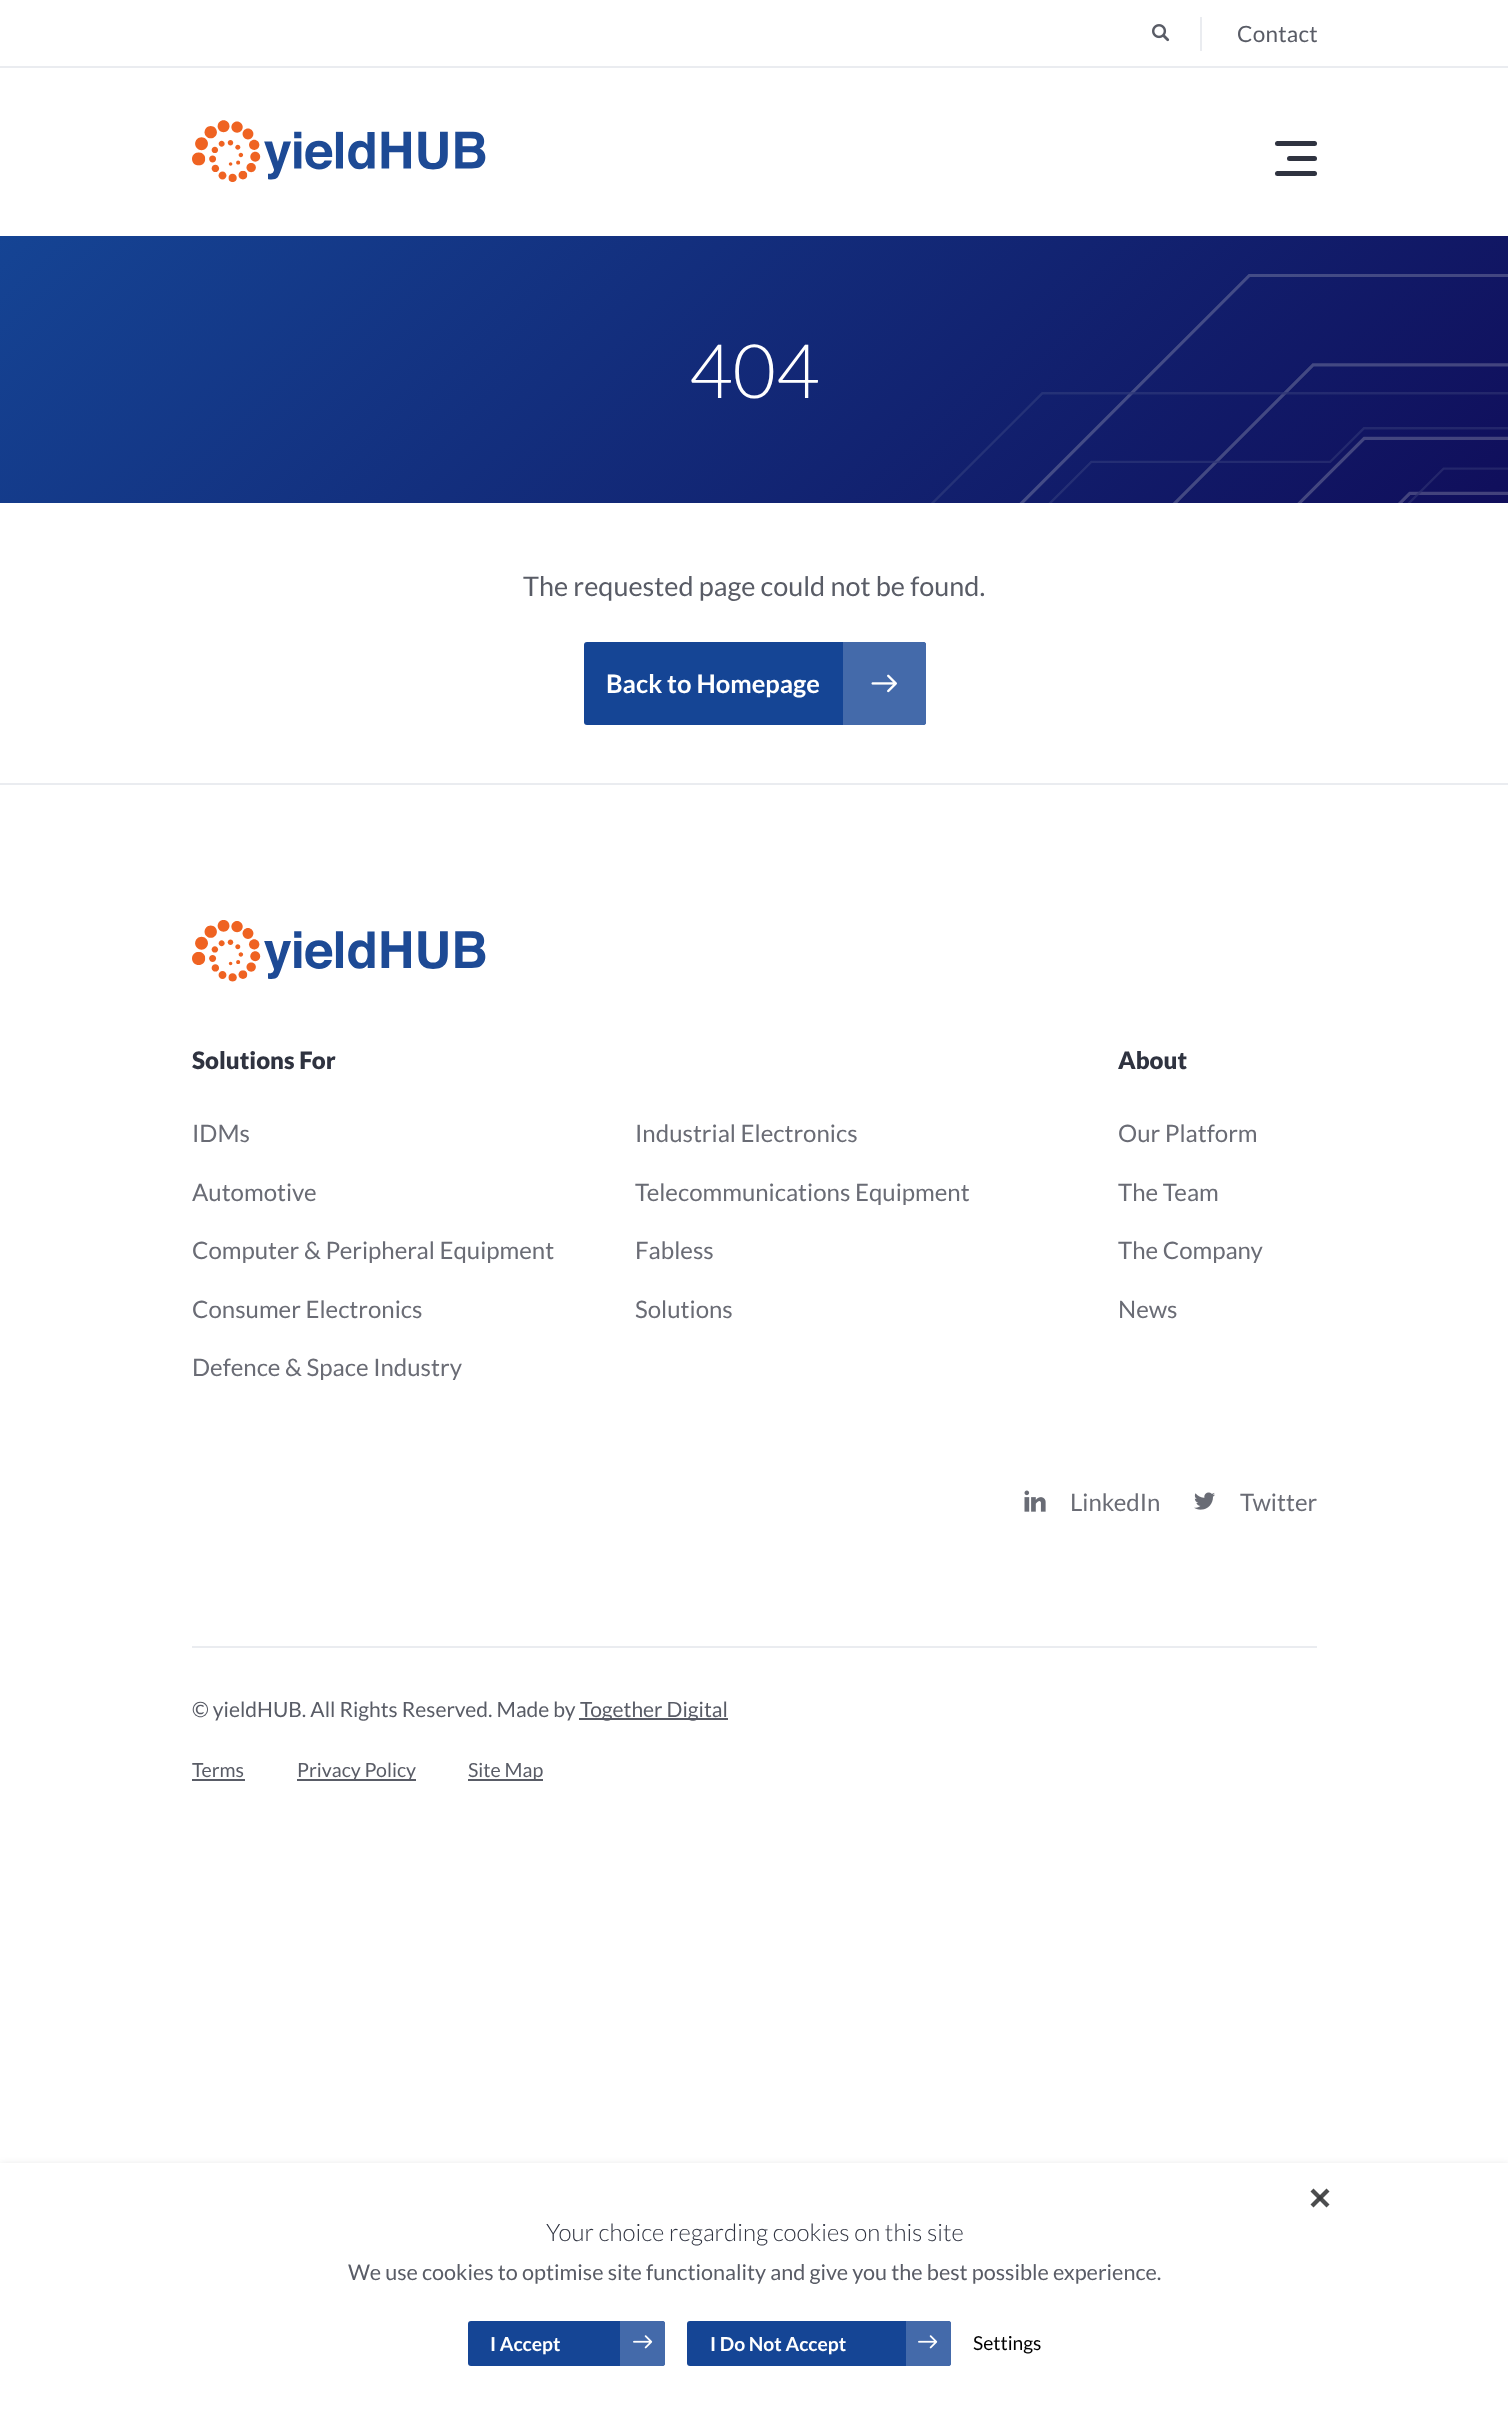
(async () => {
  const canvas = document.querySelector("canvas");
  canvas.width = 1508;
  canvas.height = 2418;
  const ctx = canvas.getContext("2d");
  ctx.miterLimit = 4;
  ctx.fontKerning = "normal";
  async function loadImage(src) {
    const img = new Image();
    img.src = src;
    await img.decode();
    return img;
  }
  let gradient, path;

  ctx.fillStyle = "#ffffff";
  ctx.fillRect(0, 0, 1508, 2418);
  ctx.fillStyle = "#eaecf0";
  ctx.fillRect(0, 66, 1508, 2);
  ctx.drawImage(await loadImage("img/1.png"), 1152, 24, 18, 18);
  ctx.fillRect(1200, 17, 2, 34);
  ctx.drawImage(await loadImage("img/2.png"), 192, 120, 294, 63);
  ctx.fillStyle = "#2f3340";
  ctx.beginPath();
  ctx.roundRect(1275, 141, 42, 5, 2.5);
  ctx.fill();
  ctx.beginPath();
  ctx.roundRect(1287, 156, 30, 5, 2.5);
  ctx.fill();
  ctx.beginPath();
  ctx.roundRect(1275, 171, 42, 5, 2.5);
  ctx.fill();
  gradient = ctx.createLinearGradient(1170, 817, 339, -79);
  gradient.addColorStop(0, "#100e5b");
  gradient.addColorStop(1, "#154494");
  gradient.addColorStop(1, "#154595");
  ctx.fillStyle = gradient;
  ctx.fillRect(0, 236, 1508, 267);
  ctx.drawImage(await loadImage("img/3.png"), 931, 274, 577, 229);
  ctx.fillStyle = "#154595";
  ctx.beginPath();
  ctx.roundRect(584, 642, 342, 83, 3);
  ctx.fill();
  ctx.fillStyle = "#446aaa";
  ctx.beginPath();
  ctx.roundRect(843, 642, 83, 83, [0, 3, 3, 0]);
  ctx.fill();
  ctx.drawImage(await loadImage("img/4.png"), 871, 674, 26, 19);
  ctx.fillStyle = "#eaecf0";
  ctx.fillRect(0, 783, 1508, 2);
  ctx.drawImage(await loadImage("img/5.png"), 192, 920, 294, 62);
  ctx.drawImage(await loadImage("img/6.png"), 1024, 1490, 22, 22);
  ctx.drawImage(await loadImage("img/7.png"), 1194, 1492, 21, 18);
  for (const [x, y, w, h, color] of [
    [192, 1646, 1125, 2, "#eaecf0"],
    [579, 1718, 149, 2, "#595c66"],
    [192, 1779, 53, 2, "#595c66"],
    [297, 1779, 119, 2, "#595c66"],
    [468, 1779, 75, 2, "#595c66"],
  ]) {
    ctx.fillStyle = color;
    ctx.fillRect(x, y, w, h);
  }
  ctx.fillStyle = "rgba(0, 0, 0, 0.08)";
  ctx.filter = "blur(3px)";
  ctx.beginPath();
  ctx.rect(0, 2163, 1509, 255);
  ctx.fill();
  ctx.filter = "none";
  ctx.fillStyle = "#ffffff";
  ctx.fillRect(0, 2163, 1508, 255);
  ctx.fillStyle = "#4d4e4f";
  path = new Path2D("M1313.5 2188.5L1329.5 2204.5L1326.5 2207.5L1310.5 2191.5Z");
  ctx.fill(path);
  ctx.fillStyle = "rgba(57, 58, 59, 0.9)";
  path = new Path2D("M1326.5 2188.5L1329.5 2191.5L1313.5 2207.5L1310.5 2204.5Z");
  ctx.fill(path);
  ctx.fillStyle = "#154595";
  ctx.beginPath();
  ctx.roundRect(468, 2321, 197, 45, 3);
  ctx.fill();
  ctx.fillStyle = "#446aaa";
  ctx.beginPath();
  ctx.roundRect(620, 2321, 45, 45, [0, 3, 3, 0]);
  ctx.fill();
  ctx.drawImage(await loadImage("img/8.png"), 633, 2335, 20, 14);
  ctx.fillStyle = "#154595";
  ctx.beginPath();
  ctx.roundRect(687, 2321, 264, 45, 3);
  ctx.fill();
  ctx.fillStyle = "#446aaa";
  ctx.beginPath();
  ctx.roundRect(906, 2321, 45, 45, [0, 3, 3, 0]);
  ctx.fill();
  ctx.drawImage(await loadImage("img/8.png"), 918, 2335, 20, 14);
  ctx.letterSpacing = "0.25px";
  ctx.font = "22.5px Lato";
  ctx.fillStyle = "#595c66";
  ctx.fillText("Contact", 1237, 42);
  ctx.letterSpacing = "0px";
  ctx.font = "300 75px Lato";
  ctx.fillStyle = "#ffffff";
  ctx.fillText("404", 689, 398);
  ctx.font = "27px Lato";
  ctx.fillStyle = "#595c66";
  ctx.fillText("The requested page could not be found.", 523, 596);
  ctx.font = "bold 25.5px Lato";
  ctx.fillStyle = "#ffffff";
  ctx.fillText("Back to Homepage", 606, 693);
  ctx.font = "900 24px Lato";
  ctx.fillStyle = "#2f3340";
  ctx.fillText("Solutions For", 192, 1069);
  ctx.font = "24px Lato";
  ctx.fillStyle = "#6a6c75";
  for (const [text, x, y] of [
    ["IDMs", 192, 1142],
    ["Industrial Electronics", 635, 1142],
    ["Automotive", 192, 1201],
    ["Telecommunications Equipment", 635, 1201],
    ["Computer & Peripheral Equipment", 192, 1259],
    ["Fabless", 635, 1259],
    ["Consumer Electronics", 192, 1318],
    ["Solutions", 635, 1318],
    ["Defence & Space Industry", 192, 1376],
  ]) {
    ctx.fillText(text, x, y);
  }
  ctx.font = "900 24px Lato";
  ctx.fillStyle = "#2f3340";
  ctx.fillText("About", 1118, 1069);
  ctx.font = "24px Lato";
  ctx.fillStyle = "#6a6c75";
  for (const [text, x, y] of [
    ["Our Platform", 1118, 1142],
    ["The Team", 1118, 1201],
    ["The Company", 1118, 1259],
    ["News", 1118, 1318],
    ["LinkedIn", 1070, 1511],
    ["Twitter", 1240, 1511],
  ]) {
    ctx.fillText(text, x, y);
  }
  ctx.font = "21px Lato";
  ctx.fillStyle = "#595c66";
  ctx.fillText("© yieldHUB. All Rights Reserved. Made by", 192, 1717);
  ctx.fillText("Together Digital", 580, 1717);
  ctx.font = "19.5px Lato";
  for (const [text, x, y] of [
    ["Terms", 192, 1777],
    ["Privacy Policy", 297, 1777],
    ["Site Map", 468, 1777],
  ]) {
    ctx.fillText(text, x, y);
  }
  ctx.font = "300 24px Lato";
  ctx.fillStyle = "#2f3340";
  ctx.fillText("Your choice regarding cookies on this site", 546, 2241);
  ctx.font = "21.6px Lato";
  ctx.fillStyle = "#595c66";
  ctx.fillText("We use cookies to optimise site functionality and give you the best possible experience.", 348, 2280);
  ctx.font = "bold 19.25px Lato";
  ctx.fillStyle = "#ffffff";
  ctx.fillText("I Accept", 490, 2351);
  ctx.fillText("I Do Not Accept", 710, 2351);
  ctx.font = "19.25px Lato";
  ctx.fillStyle = "#000000";
  ctx.fillText("Settings", 973, 2350);
})();
